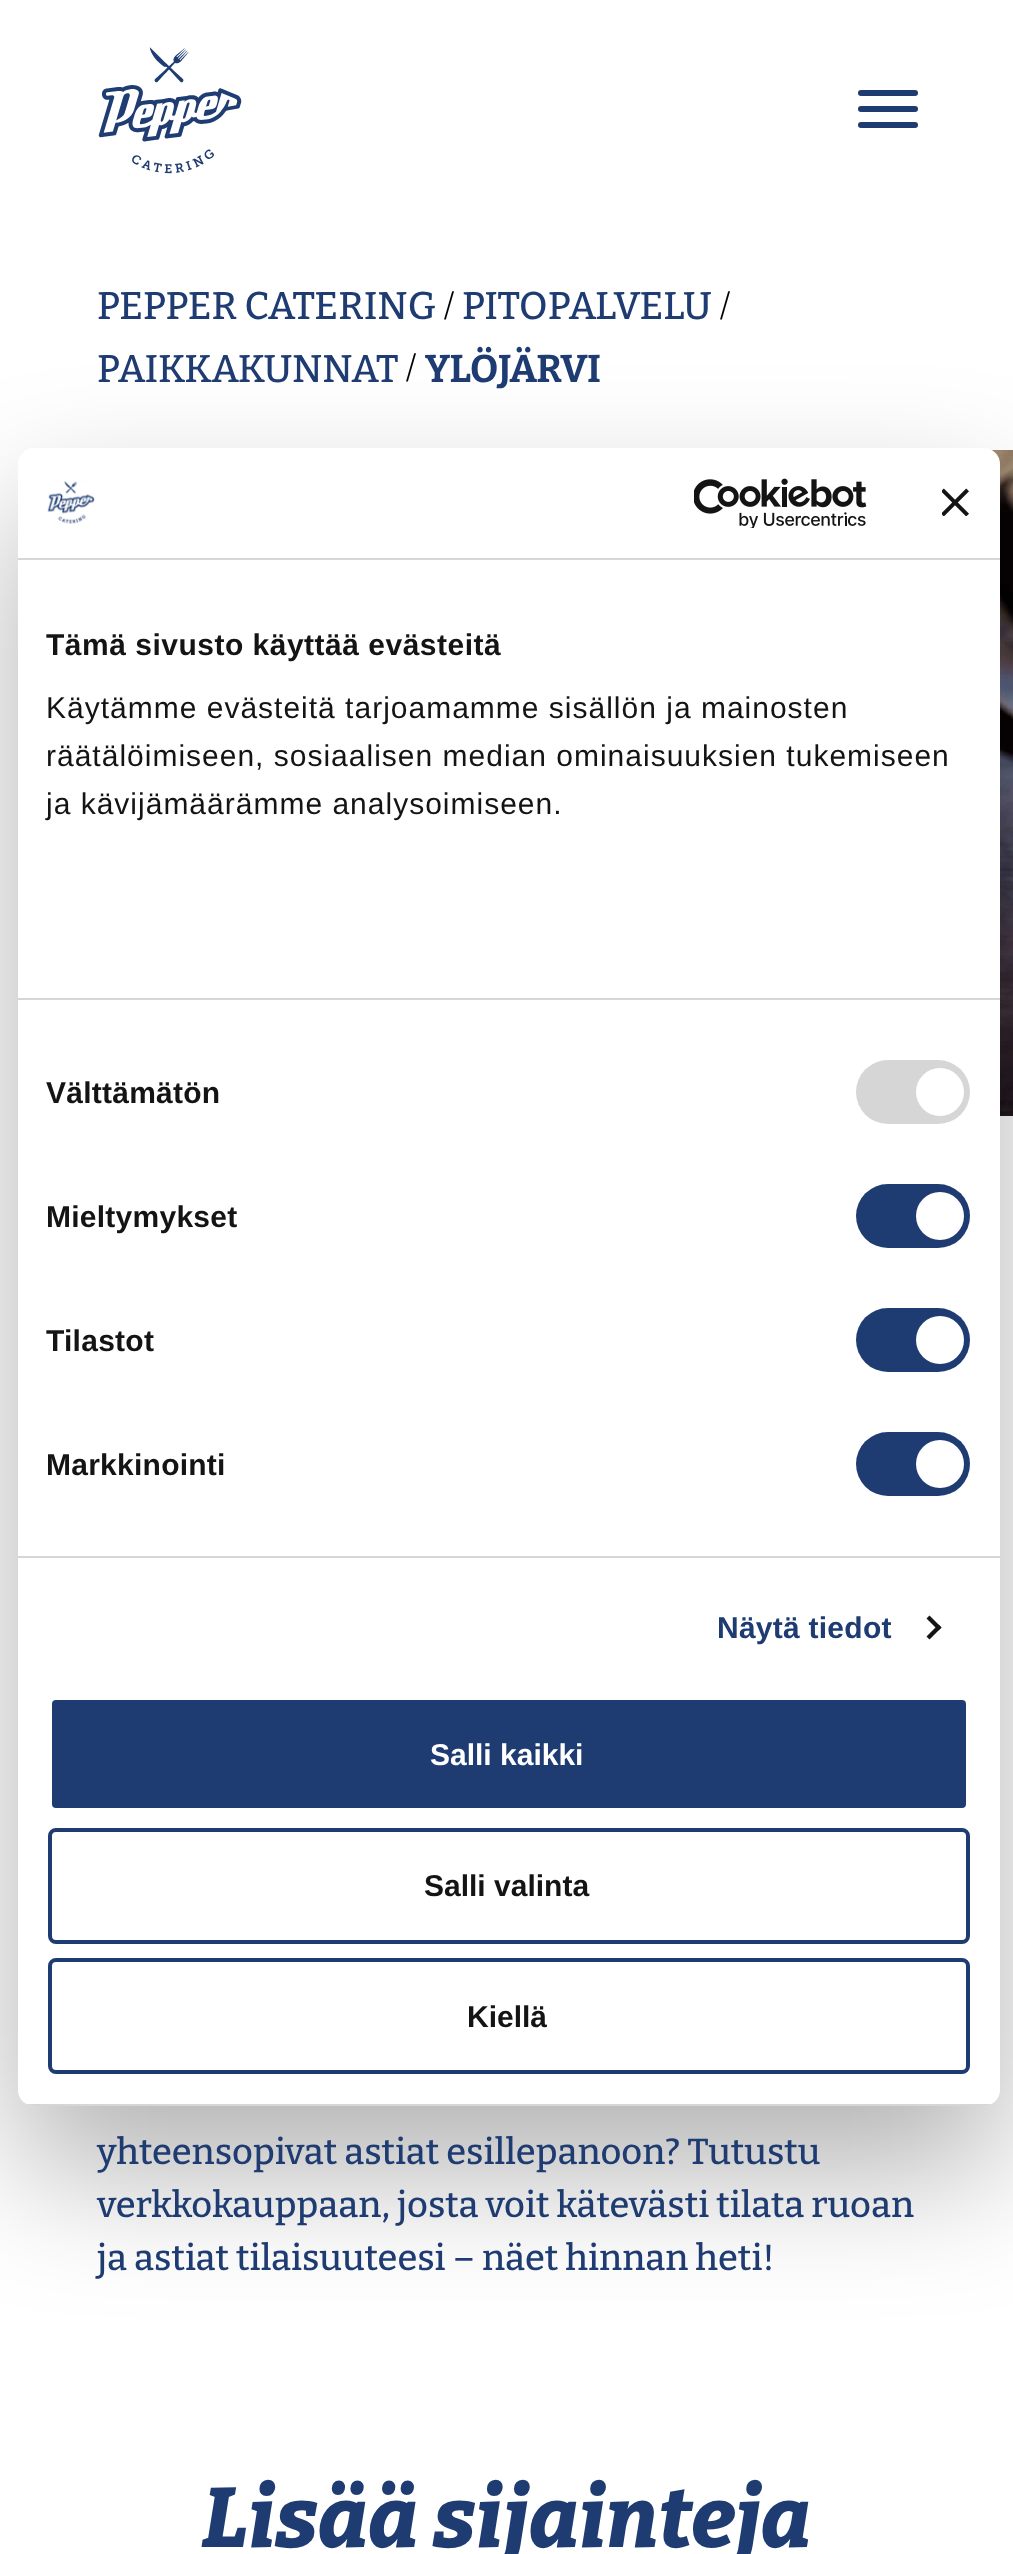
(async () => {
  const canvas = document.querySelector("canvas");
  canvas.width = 1013;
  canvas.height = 2554;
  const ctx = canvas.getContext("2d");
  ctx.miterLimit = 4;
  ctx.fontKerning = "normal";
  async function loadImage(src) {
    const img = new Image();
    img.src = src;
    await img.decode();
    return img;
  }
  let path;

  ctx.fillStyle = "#ffffff";
  ctx.fillRect(0, 0, 1013, 2554);
  ctx.drawImage(await loadImage("img/1.png"), 98, 47, 144, 127);
  ctx.fillStyle = "#1e3c72";
  ctx.beginPath();
  ctx.roundRect(858, 90, 60, 6, 3);
  ctx.fill();
  ctx.beginPath();
  ctx.roundRect(858, 106, 60, 6, 3);
  ctx.fill();
  ctx.beginPath();
  ctx.roundRect(858, 122, 60, 6, 3);
  ctx.fill();
  ctx.drawImage(await loadImage("img/2.png"), 991, 450, 22, 666);
  ctx.fillStyle = "rgba(0, 0, 0, 0.3)";
  ctx.filter = "blur(68px)";
  ctx.beginPath();
  ctx.roundRect(18, 512, 982, 1658, 16);
  ctx.fill();
  ctx.filter = "none";
  ctx.fillStyle = "#ffffff";
  ctx.beginPath();
  ctx.roundRect(18, 448, 982, 1658, 16);
  ctx.fill();
  ctx.fillStyle = "#d6d6d6";
  ctx.fillRect(18, 558, 982, 2);
  ctx.drawImage(await loadImage("img/3.png"), 47, 480, 48, 44);
  ctx.drawImage(await loadImage("img/4.png"), 694, 478, 173, 50);
  ctx.drawImage(await loadImage("img/5.png"), 942, 488, 27, 28);
  ctx.fillRect(18, 998, 982, 2);
  ctx.fillRect(18, 1556, 982, 2);
  ctx.beginPath();
  ctx.roundRect(856, 1060, 114, 64, 32);
  ctx.fill();
  ctx.fillStyle = "#ffffff";
  ctx.beginPath();
  ctx.arc(940, 1092, 24, 0, Math.PI * 2);
  ctx.fill();
  ctx.fillStyle = "#1e3c72";
  ctx.beginPath();
  ctx.roundRect(856, 1184, 114, 64, 32);
  ctx.fill();
  ctx.fillStyle = "#ffffff";
  ctx.beginPath();
  ctx.arc(940, 1216, 24, 0, Math.PI * 2);
  ctx.fill();
  ctx.fillStyle = "#1e3c72";
  ctx.beginPath();
  ctx.roundRect(856, 1308, 114, 64, 32);
  ctx.fill();
  ctx.fillStyle = "#ffffff";
  ctx.beginPath();
  ctx.arc(940, 1340, 24, 0, Math.PI * 2);
  ctx.fill();
  ctx.fillStyle = "#1e3c72";
  ctx.beginPath();
  ctx.roundRect(856, 1432, 114, 64, 32);
  ctx.fill();
  ctx.fillStyle = "#ffffff";
  ctx.beginPath();
  ctx.arc(940, 1464, 24, 0, Math.PI * 2);
  ctx.fill();
  ctx.fillStyle = "#141414";
  path = new Path2D("M929.5 1615.5L941.5 1627.5L938.5 1630.5L926.5 1618.5Z");
  ctx.fill(path);
  path = new Path2D("M938.5 1624.5L941.5 1627.5L929.5 1639.5L926.5 1636.5Z");
  ctx.fill(path);
  ctx.save();
  ctx.beginPath();
  ctx.roundRect(18, 448, 982, 1658, 16);
  ctx.clip();
  ctx.fillStyle = "#d6d6d6";
  ctx.fillRect(18, 2104, 982, 2);
  ctx.restore();
  ctx.fillStyle = "#1e3c72";
  ctx.beginPath();
  ctx.roundRect(50, 1698, 918, 112, 6);
  ctx.fill();
  ctx.strokeStyle = "#ffffff";
  ctx.lineWidth = 4;
  ctx.stroke();
  ctx.beginPath();
  ctx.roundRect(50, 1830, 918, 112, 6);
  ctx.strokeStyle = "#1e3c72";
  ctx.stroke();
  ctx.beginPath();
  ctx.roundRect(50, 1960, 918, 112, 6);
  ctx.stroke();
  ctx.font = "500 38.6px Bitter";
  ctx.fillText("PEPPER CATERING", 97, 319);
  ctx.font = "32px Bitter";
  ctx.fillStyle = "#000000";
  ctx.fillText("/", 444, 317);
  ctx.font = "500 38.6px Bitter";
  ctx.fillStyle = "#1e3c72";
  ctx.fillText("PITOPALVELU", 462, 319);
  ctx.font = "32px Bitter";
  ctx.fillStyle = "#000000";
  ctx.fillText("/", 720, 317);
  ctx.font = "500 38.6px Bitter";
  ctx.fillStyle = "#1e3c72";
  ctx.fillText("PAIKKAKUNNAT", 97, 382);
  ctx.font = "32px Bitter";
  ctx.fillStyle = "#000000";
  ctx.fillText("/", 406, 379);
  ctx.font = "bold 38.6px Bitter";
  ctx.fillStyle = "#1e3c72";
  ctx.fillText("YLÖJÄRVI", 425, 382);
  ctx.font = "500 36.25px Bitter";
  for (const [text, x, y] of [
    ["yhteensopivat astiat esillepanoon? Tutustu", 97, 2164],
    ["verkkokauppaan, josta voit kätevästi tilata ruoan", 97, 2217],
    ["ja astiat tilaisuuteesi – näet hinnan heti!", 97, 2270],
  ]) {
    ctx.fillText(text, x, y);
  }
  ctx.font = "italic 100 84.5px Bitter";
  ctx.fillText("Lisää sijainteja", 202, 2547);
  ctx.letterSpacing = "0.5px";
  ctx.font = "bold 30px Liberation Sans";
  ctx.fillStyle = "#141414";
  ctx.fillText("Tämä sivusto käyttää evästeitä", 46, 655);
  ctx.letterSpacing = "1px";
  ctx.font = "30px Liberation Sans";
  for (const [text, x, y] of [
    ["Käytämme evästeitä tarjoamamme sisällön ja mainosten", 46, 718],
    ["räätälöimiseen, sosiaalisen median ominaisuuksien tukemiseen", 46, 766],
    ["ja kävijämäärämme analysoimiseen.", 46, 814],
  ]) {
    ctx.fillText(text, x, y);
  }
  ctx.letterSpacing = "0.25px";
  ctx.font = "bold 30px Liberation Sans";
  for (const [text, x, y] of [
    ["Välttämätön", 46, 1103],
    ["Mieltymykset", 46, 1227],
    ["Tilastot", 46, 1351],
    ["Markkinointi", 46, 1475],
  ]) {
    ctx.fillText(text, x, y);
  }
  ctx.fillStyle = "#1e3c72";
  ctx.fillText("Näytä tiedot", 717, 1638);
  ctx.letterSpacing = "0px";
  ctx.fillStyle = "#ffffff";
  ctx.fillText("Salli kaikki", 430, 1765);
  ctx.fillStyle = "#141414";
  ctx.fillText("Salli valinta", 424, 1896);
  ctx.fillText("Kiellä", 467, 2027);
})();
